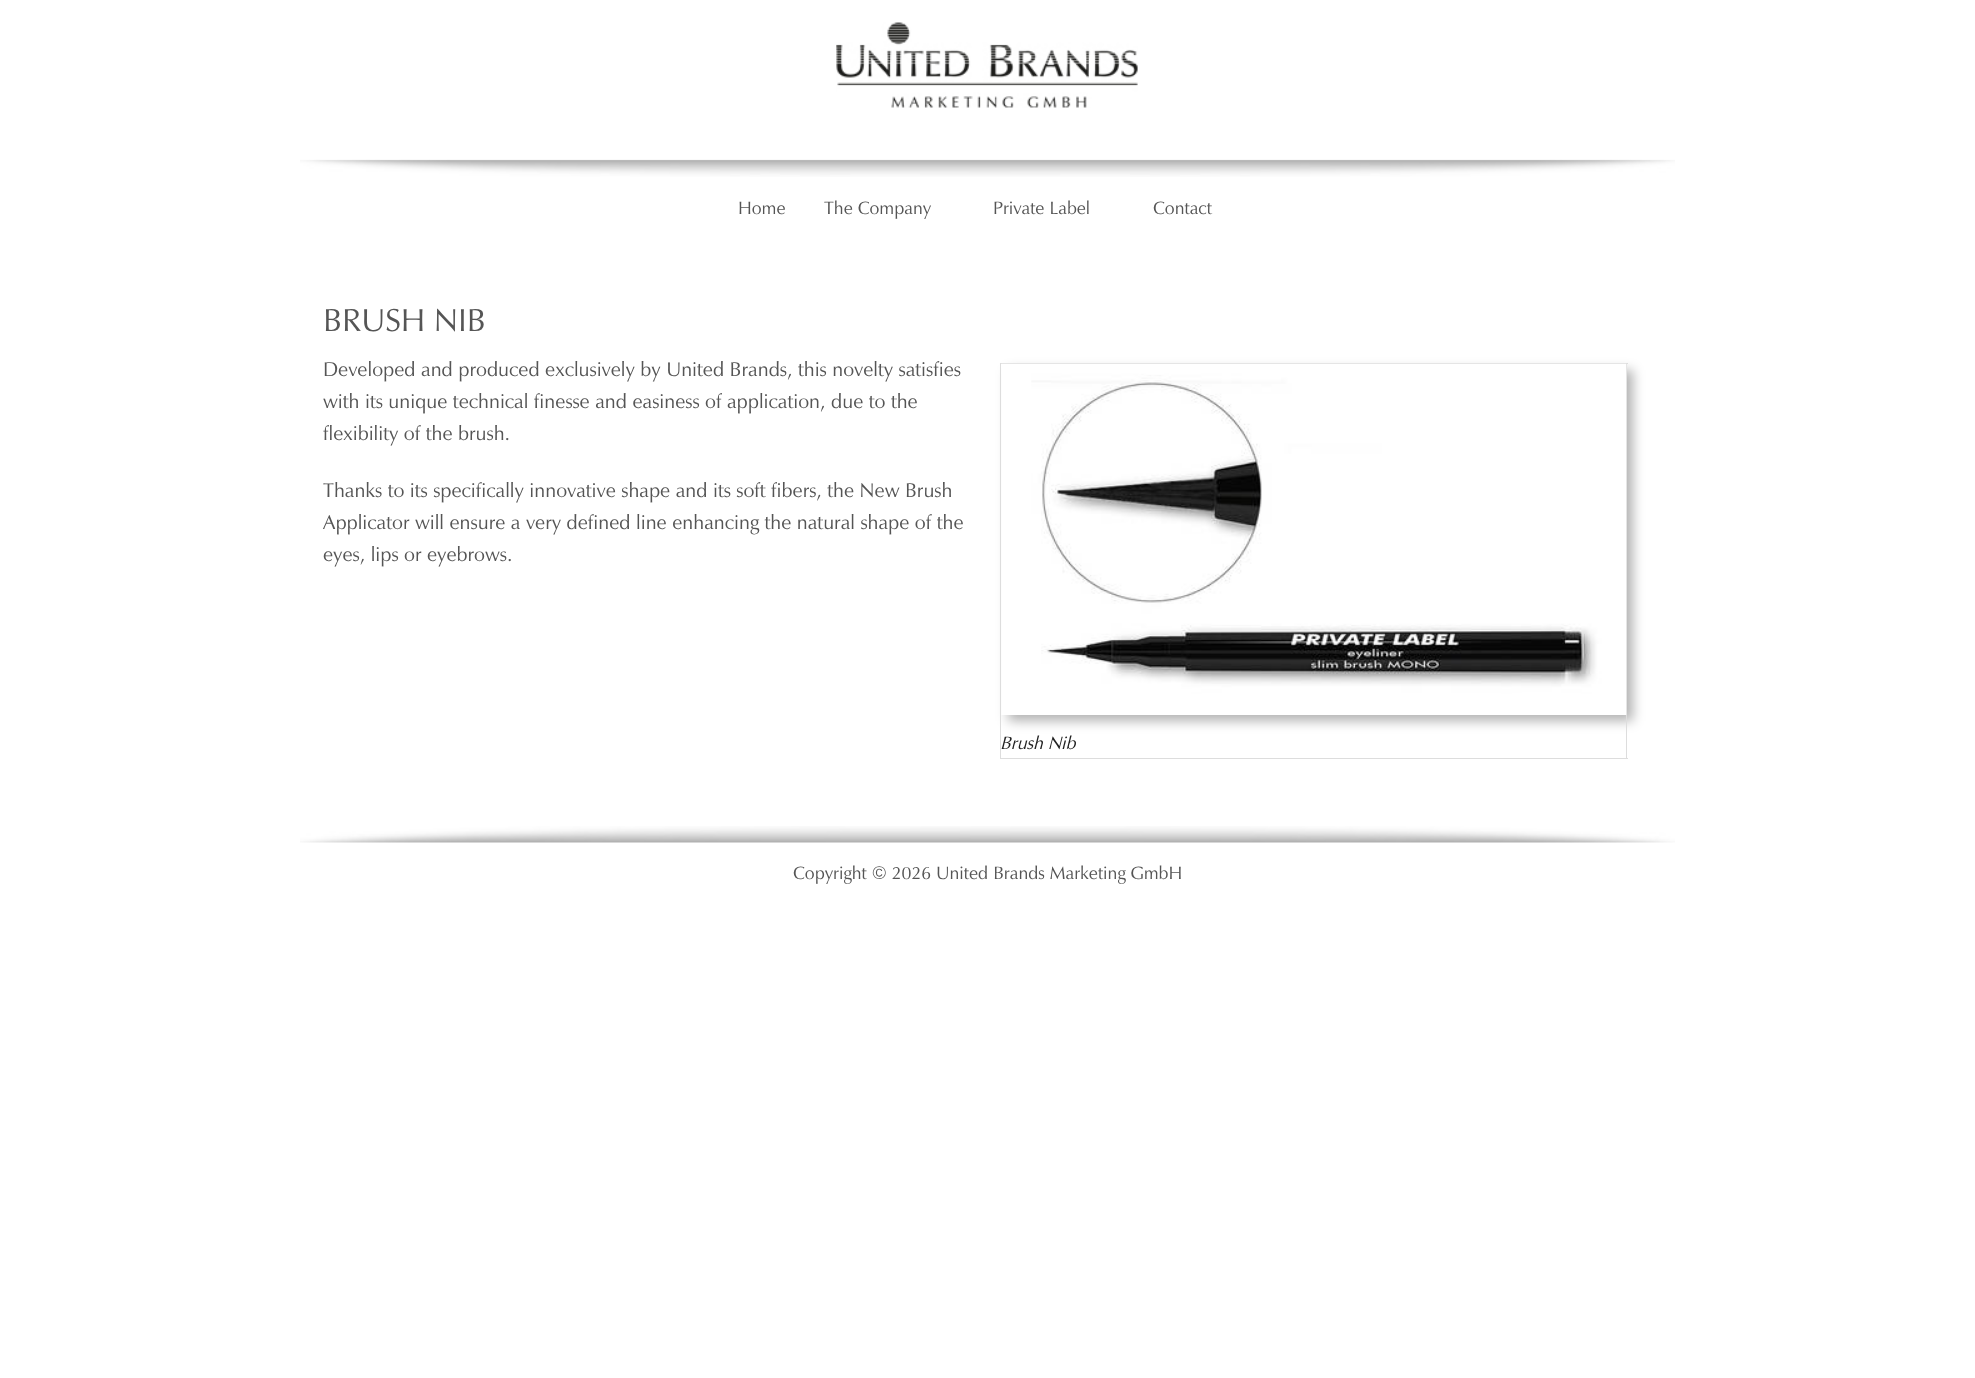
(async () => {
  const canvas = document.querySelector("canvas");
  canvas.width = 1975;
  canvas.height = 1378;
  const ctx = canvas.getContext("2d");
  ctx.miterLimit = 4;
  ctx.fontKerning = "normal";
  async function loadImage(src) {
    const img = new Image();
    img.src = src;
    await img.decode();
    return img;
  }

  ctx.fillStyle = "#ffffff";
  ctx.fillRect(0, 0, 1975, 1378);
  ctx.drawImage(await loadImage("img/1.png"), 300, 159, 1375, 18);
  ctx.drawImage(await loadImage("img/2.png"), 836, 22, 302, 86);
  ctx.fillStyle = "rgba(0, 0, 0, 0.3)";
  ctx.filter = "blur(6px)";
  ctx.beginPath();
  ctx.rect(1008, 370, 625, 351);
  ctx.fill();
  ctx.filter = "none";
  for (const [x, y, w, h, color] of [
    [1000, 363, 628, 1, "#dddddd"],
    [1626, 363, 1, 396, "#dddddd"],
    [1000, 758, 628, 1, "#dddddd"],
    [1000, 363, 1, 396, "#dddddd"],
  ]) {
    ctx.fillStyle = color;
    ctx.fillRect(x, y, w, h);
  }
  ctx.drawImage(await loadImage("img/3.png"), 1001, 363, 626, 352);
  ctx.drawImage(await loadImage("img/4.png"), 300, 826, 1375, 17);
  ctx.font = "18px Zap";
  ctx.fillStyle = "#555555";
  for (const [text, x, y] of [
    ["Home", 738, 214],
    ["The Company", 824, 214],
    ["Private Label", 993, 214],
    ["Contact", 1153, 214],
  ]) {
    ctx.fillText(text, x, y);
  }
  ctx.font = "32px Zap";
  ctx.fillText("BRUSH NIB", 323, 331);
  ctx.font = "20px Zap";
  for (const [text, x, y] of [
    ["Developed and produced exclusively by United Brands, this novelty satisfies", 323, 376],
    ["with its unique technical finesse and easiness of application, due to the", 323, 408],
    ["flexibility of the brush.", 323, 440],
    ["Thanks to its specifically innovative shape and its soft fibers, the New Brush", 323, 497],
    ["Applicator will ensure a very defined line enhancing the natural shape of the", 323, 529],
    ["eyes, lips or eyebrows.", 323, 561],
  ]) {
    ctx.fillText(text, x, y);
  }
  ctx.font = "italic 18px Zap";
  ctx.fillStyle = "#222222";
  ctx.fillText("Brush Nib", 1000, 749);
  ctx.font = "18px Zap";
  ctx.fillStyle = "#555555";
  ctx.fillText("Copyright © 2026 United Brands Marketing GmbH", 793, 879);
})();
